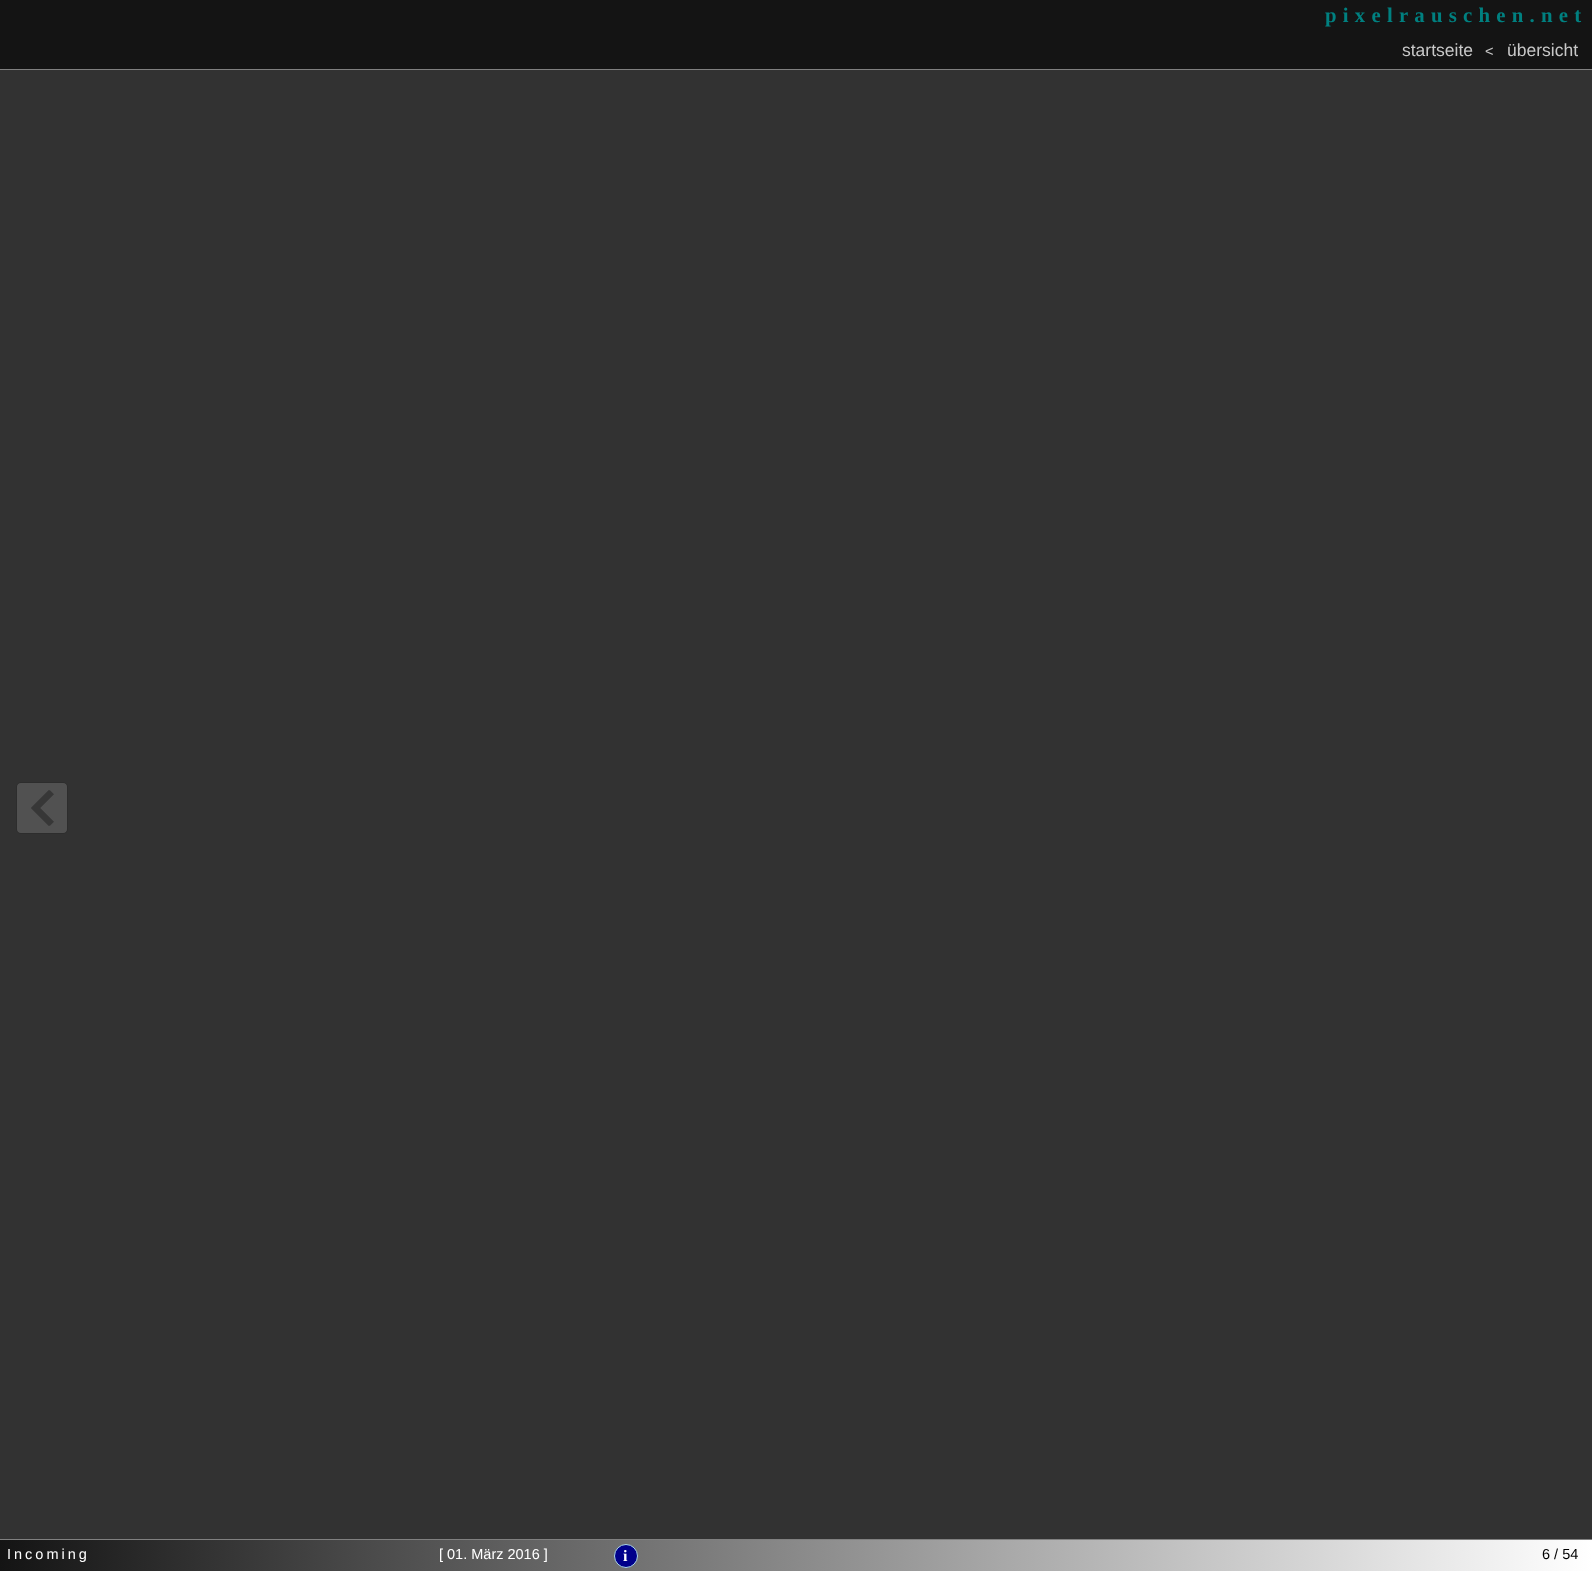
(async () => {
  const canvas = document.querySelector("canvas");
  canvas.width = 1592;
  canvas.height = 1571;
  const ctx = canvas.getContext("2d");
  ctx.miterLimit = 4;
  ctx.fontKerning = "normal";
  async function loadImage(src) {
    const img = new Image();
    img.src = src;
    await img.decode();
    return img;
  }
  let gradient;

  ctx.fillStyle = "#323232";
  ctx.fillRect(0, 0, 1592, 1571);
  ctx.fillStyle = "#141414";
  ctx.fillRect(0, 0, 1592, 69);
  ctx.fillStyle = "#808080";
  ctx.fillRect(0, 69, 1592, 1);
  ctx.fillStyle = "#3e3e3e";
  ctx.beginPath();
  ctx.roundRect(16.5, 782.5, 51, 51, 4.5);
  ctx.fill();
  ctx.strokeStyle = "#2d2d2d";
  ctx.stroke();
  ctx.drawImage(await loadImage("img/1.png"), 17, 783, 50, 50);
  gradient = ctx.createLinearGradient(0, 1556, 1592, 1556);
  gradient.addColorStop(0, "#141414");
  gradient.addColorStop(1, "#ffffff");
  ctx.fillStyle = gradient;
  ctx.fillRect(0, 1540, 1592, 31);
  ctx.fillStyle = "#808080";
  ctx.fillRect(0, 1539, 1592, 1);
  ctx.fillStyle = "#00008b";
  ctx.beginPath();
  ctx.arc(626, 1556, 11.5, 0, Math.PI * 2);
  ctx.fill();
  ctx.strokeStyle = "#add8e6";
  ctx.stroke();
  ctx.letterSpacing = "6.25px";
  ctx.font = "bold 20.75px Liberation Serif";
  ctx.fillStyle = "#008080";
  ctx.fillText("pixelrauschen.net", 1325, 22);
  ctx.letterSpacing = "0px";
  ctx.font = "17.5px Liberation Sans";
  ctx.fillStyle = "#c8c8c8";
  ctx.fillText("startseite", 1402, 56);
  ctx.font = "14.5px Liberation Sans";
  ctx.fillText("<", 1485, 56);
  ctx.font = "17.5px Liberation Sans";
  ctx.fillText("übersicht", 1507, 56);
  ctx.letterSpacing = "3px";
  ctx.font = "14.5px Liberation Sans";
  ctx.fillStyle = "#ffffff";
  ctx.fillText("Incoming", 7, 1559);
  ctx.letterSpacing = "0px";
  ctx.fillText("[ 01. März 2016 ]", 439, 1559);
  ctx.font = "bold 16px Liberation Serif";
  ctx.fillText("i", 623, 1561);
  ctx.font = "14.5px Liberation Sans";
  ctx.fillStyle = "#000000";
  ctx.fillText("6 / 54", 1542, 1559);
})();
